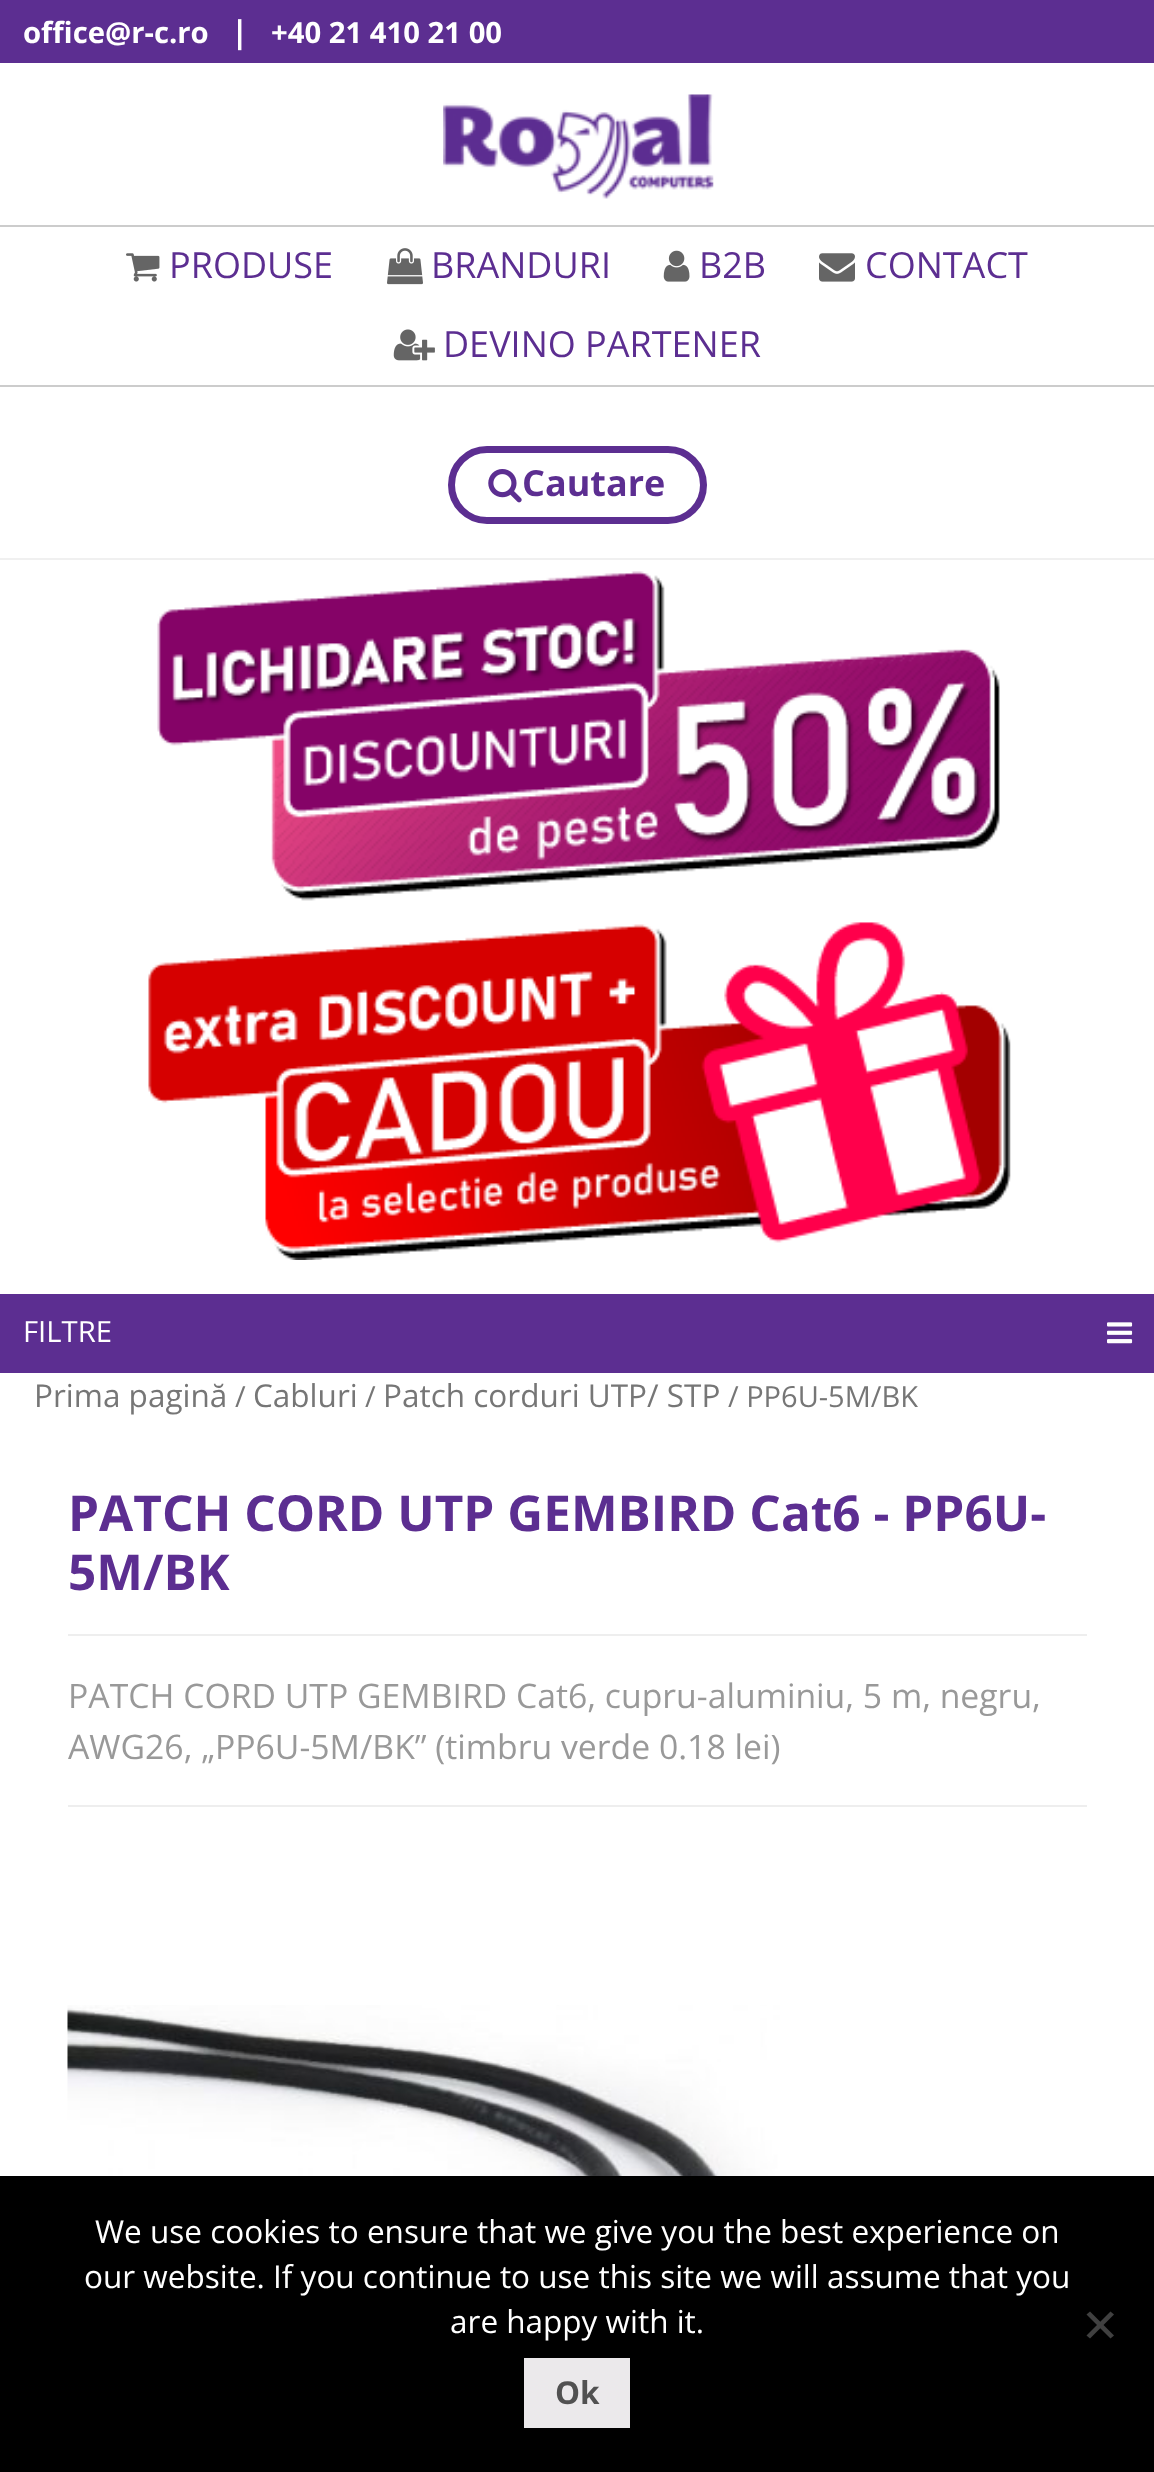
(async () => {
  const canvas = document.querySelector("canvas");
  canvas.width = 1154;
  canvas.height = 2472;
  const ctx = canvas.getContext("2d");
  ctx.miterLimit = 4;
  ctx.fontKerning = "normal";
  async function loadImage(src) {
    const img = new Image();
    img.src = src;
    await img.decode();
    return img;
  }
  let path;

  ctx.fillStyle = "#ffffff";
  ctx.fillRect(0, 0, 1154, 2472);
  ctx.fillStyle = "#5c2e91";
  ctx.fillRect(0, 0, 1154, 63);
  ctx.fillStyle = "#f0f0f0";
  ctx.fillRect(0, 558, 1154, 2);
  ctx.drawImage(await loadImage("img/1.png"), 443, 94, 271, 105);
  ctx.fillStyle = "#cccccc";
  ctx.fillRect(0, 225, 1154, 2);
  ctx.fillRect(0, 385, 1154, 2);
  ctx.drawImage(await loadImage("img/2.png"), 126, 253, 34, 29);
  ctx.drawImage(await loadImage("img/3.png"), 387, 248, 36, 37);
  ctx.drawImage(await loadImage("img/4.png"), 663, 250, 27, 32);
  ctx.drawImage(await loadImage("img/5.png"), 819, 253, 36, 29);
  ctx.drawImage(await loadImage("img/6.png"), 393, 329, 42, 32);
  ctx.beginPath();
  ctx.roundRect(451.5, 449.5, 252, 71, 35.5);
  ctx.strokeStyle = "#5c2e91";
  ctx.lineWidth = 7;
  ctx.stroke();
  ctx.drawImage(await loadImage("img/7.png"), 488, 469, 34, 34);
  ctx.drawImage(await loadImage("img/8.png"), 157, 571, 843, 330);
  ctx.drawImage(await loadImage("img/9.png"), 148, 922, 863, 338);
  ctx.fillStyle = "#5c2e91";
  ctx.fillRect(0, 1294, 1154, 79);
  ctx.drawImage(await loadImage("img/10.png"), 1107, 1322, 26, 22);
  ctx.fillStyle = "#eeeeee";
  ctx.fillRect(68, 1634, 1019, 2);
  ctx.fillRect(68, 1805, 1019, 2);
  ctx.drawImage(await loadImage("img/11.png"), 67, 2005, 713, 171);
  ctx.fillStyle = "#000000";
  ctx.fillRect(0, 2176, 1154, 296);
  ctx.fillStyle = "#404040";
  path = new Path2D("M1110.5 2311.5L1114 2314.5L1090 2338.5L1086.5 2335.5Z");
  ctx.fill(path);
  path = new Path2D("M1086.5 2314.5L1090 2311.5L1114 2335.5L1110.5 2338.5Z");
  ctx.fill(path);
  ctx.fillStyle = "#ebe9eb";
  ctx.fillRect(524, 2358, 106, 70);
  ctx.font = "bold 29.25px Open Sans";
  ctx.fillStyle = "#ffffff";
  ctx.fillText("office@r-c.ro", 23, 43);
  ctx.font = "bold 31.5px Open Sans";
  ctx.fillText("|", 231, 43);
  ctx.font = "bold 29.25px Open Sans";
  ctx.fillText("+40 21 410 21 00", 271, 43);
  ctx.font = "36px Open Sans";
  ctx.fillStyle = "#5c2e91";
  for (const [text, x, y] of [
    ["PRODUSE", 169, 278],
    ["BRANDURI", 431, 278],
    ["B2B", 699, 278],
    ["CONTACT", 865, 278],
    ["DEVINO PARTENER", 443, 357],
  ]) {
    ctx.fillText(text, x, y);
  }
  ctx.font = "bold 36px Open Sans";
  ctx.fillText("Cautare", 522, 496);
  ctx.font = "29.25px Open Sans";
  ctx.fillStyle = "#ffffff";
  ctx.fillText("FILTRE", 23, 1342);
  ctx.font = "31.5px Open Sans";
  ctx.fillStyle = "#767676";
  ctx.fillText("Prima pagină", 34, 1407);
  ctx.font = "29px Open Sans";
  ctx.fillText("/", 235, 1407);
  ctx.font = "31.5px Open Sans";
  ctx.fillText("Cabluri", 253, 1407);
  ctx.font = "29px Open Sans";
  ctx.fillText("/", 365, 1407);
  ctx.font = "31.5px Open Sans";
  ctx.fillText("Patch corduri UTP/ STP", 383, 1407);
  ctx.font = "29px Open Sans";
  ctx.fillText("/ PP6U-5M/BK", 728, 1407);
  ctx.font = "bold 49.5px Open Sans";
  ctx.fillStyle = "#5c2e91";
  ctx.fillText("PATCH CORD UTP GEMBIRD Cat6 - PP6U-", 68, 1531);
  ctx.fillText("5M/BK", 68, 1590);
  ctx.font = "33.75px Open Sans";
  ctx.fillStyle = "#999999";
  ctx.fillText("PATCH CORD UTP GEMBIRD Cat6, cupru-aluminiu, 5 m, negru,", 68, 1708);
  ctx.fillText("AWG26, „PP6U-5M/BK” (timbru verde 0.18 lei)", 68, 1759);
  ctx.font = "31.5px Open Sans";
  ctx.fillStyle = "#ffffff";
  for (const [text, x, y] of [
    ["We use cookies to ensure that we give you the best experience on", 95, 2243],
    ["our website. If you continue to use this site we will assume that you", 84, 2288],
    ["are happy with it.", 450, 2333],
  ]) {
    ctx.fillText(text, x, y);
  }
  ctx.font = "bold 31.5px Open Sans";
  ctx.fillStyle = "#515151";
  ctx.fillText("Ok", 555, 2404);
})();
